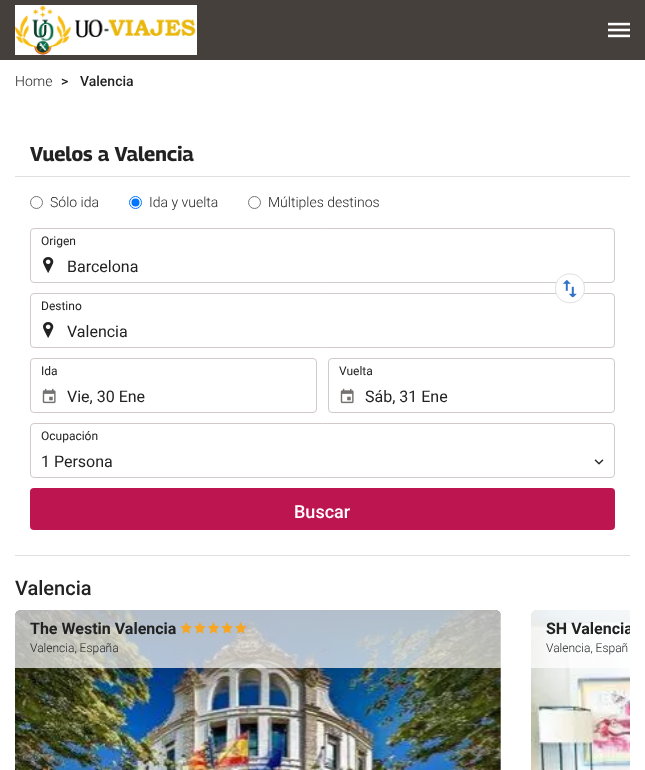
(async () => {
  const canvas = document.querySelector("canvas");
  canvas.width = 645;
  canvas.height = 770;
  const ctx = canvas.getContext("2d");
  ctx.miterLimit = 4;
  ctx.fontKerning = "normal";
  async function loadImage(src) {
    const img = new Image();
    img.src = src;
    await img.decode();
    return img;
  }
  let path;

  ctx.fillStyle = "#ffffff";
  ctx.fillRect(0, 0, 645, 770);
  ctx.fillStyle = "#46403c";
  ctx.fillRect(0, 0, 645, 60);
  ctx.drawImage(await loadImage("img/1.png"), 15, 5, 182, 50);
  ctx.drawImage(await loadImage("img/2.png"), 608, 22, 22, 16);
  ctx.fillStyle = "#dfdfdf";
  ctx.fillRect(15, 176, 615, 1);
  ctx.fillRect(15, 555, 615, 1);
  ctx.beginPath();
  ctx.arc(36.5, 202.5, 6, 0, Math.PI * 2);
  ctx.strokeStyle = "#767676";
  ctx.stroke();
  ctx.beginPath();
  ctx.arc(135.5, 202.5, 6, 0, Math.PI * 2);
  ctx.strokeStyle = "#0075ff";
  ctx.stroke();
  ctx.fillStyle = "#0075ff";
  ctx.beginPath();
  ctx.arc(135.5, 202.5, 4, 0, Math.PI * 2);
  ctx.fill();
  ctx.beginPath();
  ctx.arc(254.5, 202.5, 6, 0, Math.PI * 2);
  ctx.strokeStyle = "#767676";
  ctx.stroke();
  ctx.drawImage(await loadImage("img/3.png"), 43, 257, 11, 16);
  ctx.beginPath();
  ctx.roundRect(30.5, 228.5, 584, 54, 3.5);
  ctx.strokeStyle = "#d0cbc9";
  ctx.stroke();
  ctx.drawImage(await loadImage("img/3.png"), 43, 322, 11, 16);
  ctx.beginPath();
  ctx.roundRect(30.5, 293.5, 584, 54, 3.5);
  ctx.stroke();
  ctx.fillStyle = "#ffffff";
  path = new Path2D("M585 288.5C585 296.5 578.5 303.5 570 303.5C561.5 303.5 555 296.5 555 288.5C555 280 561.5 273.5 570 273.5C578.5 273.5 585 280 585 288.5Z");
  ctx.fill(path);
  path = new Path2D("M584.5 288.5C584.5 307.5 555.5 307.5 555.5 288.5C555.5 269 584.5 269 584.5 288.5Z");
  ctx.strokeStyle = "#dfdfdf";
  ctx.stroke(path);
  ctx.drawImage(await loadImage("img/4.png"), 562, 279, 15, 19);
  ctx.drawImage(await loadImage("img/5.png"), 42, 388, 14, 16);
  ctx.beginPath();
  ctx.roundRect(30.5, 358.5, 286, 54, 3.5);
  ctx.strokeStyle = "#d0cbc9";
  ctx.stroke();
  ctx.drawImage(await loadImage("img/5.png"), 340, 388, 14, 16);
  ctx.beginPath();
  ctx.roundRect(328.5, 358.5, 286, 54, 3.5);
  ctx.stroke();
  ctx.beginPath();
  ctx.roundRect(30.5, 423.5, 584, 54, 3.5);
  ctx.stroke();
  ctx.drawImage(await loadImage("img/6.png"), 594, 459, 10, 6);
  ctx.fillStyle = "#bd1550";
  ctx.beginPath();
  ctx.roundRect(30, 488, 585, 42, 4);
  ctx.fill();
  ctx.drawImage(await loadImage("img/7.png"), 15, 610, 486, 160);
  ctx.fillStyle = "rgba(255, 255, 255, 0.7)";
  ctx.beginPath();
  ctx.roundRect(15, 610, 486, 58, [6, 6, 0, 0]);
  ctx.fill();
  ctx.drawImage(await loadImage("img/8.png"), 180, 622, 67, 12);
  ctx.drawImage(await loadImage("img/9.png"), 531, 610, 99, 160);
  ctx.beginPath();
  ctx.roundRect(531, 610, 99, 58, [6, 0, 0, 0]);
  ctx.fill();
  ctx.font = "300 14px Roboto";
  ctx.fillStyle = "#222222";
  ctx.fillText("Home", 15, 86);
  ctx.font = "500 14px Roboto";
  ctx.fillText(">", 61, 86);
  ctx.fillText("Valencia", 80, 86);
  ctx.font = "bold 20px Georama";
  ctx.fillText("Vuelos a Valencia", 30, 161);
  ctx.font = "300 14px Roboto";
  for (const [text, x, y] of [
    ["Sólo ida", 50, 207],
    ["Ida y vuelta", 149, 207],
    ["Múltiples destinos", 268, 207],
  ]) {
    ctx.fillText(text, x, y);
  }
  ctx.font = "12px Roboto";
  ctx.fillText("Origen", 41, 245);
  ctx.font = "16px Roboto";
  ctx.fillText("Barcelona", 67, 272);
  ctx.font = "12px Roboto";
  ctx.fillText("Destino", 41, 310);
  ctx.font = "16px Roboto";
  ctx.fillText("Valencia", 67, 337);
  ctx.font = "12px Roboto";
  ctx.fillText("Ida", 41, 375);
  ctx.font = "16px Roboto";
  ctx.fillText("Vie, 30 Ene", 67, 402);
  ctx.font = "12px Roboto";
  ctx.fillText("Vuelta", 339, 375);
  ctx.font = "16px Roboto";
  ctx.fillText("Sáb, 31 Ene", 365, 402);
  ctx.font = "12px Roboto";
  ctx.fillText("Ocupación", 41, 440);
  ctx.font = "16px Roboto";
  ctx.fillText("1 Persona", 41, 467);
  ctx.font = "500 18px Roboto";
  ctx.fillStyle = "#ffffff";
  ctx.fillText("Buscar", 294, 518);
  ctx.font = "500 20px Roboto";
  ctx.fillStyle = "#222222";
  ctx.fillText("Valencia", 15, 595);
  ctx.font = "bold 16px Roboto";
  ctx.fillText("The Westin Valencia", 30, 634);
  ctx.font = "300 12px Roboto";
  ctx.fillText("Valencia, España", 30, 652);
  ctx.save();
  ctx.beginPath();
  ctx.rect(15, 610, 615, 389);
  ctx.clip();
  ctx.font = "bold 16px Roboto";
  ctx.fillText("SH Valencia", 546, 634);
  ctx.restore();
  ctx.fillText("Valencia, Españ", 546, 652);
})();
